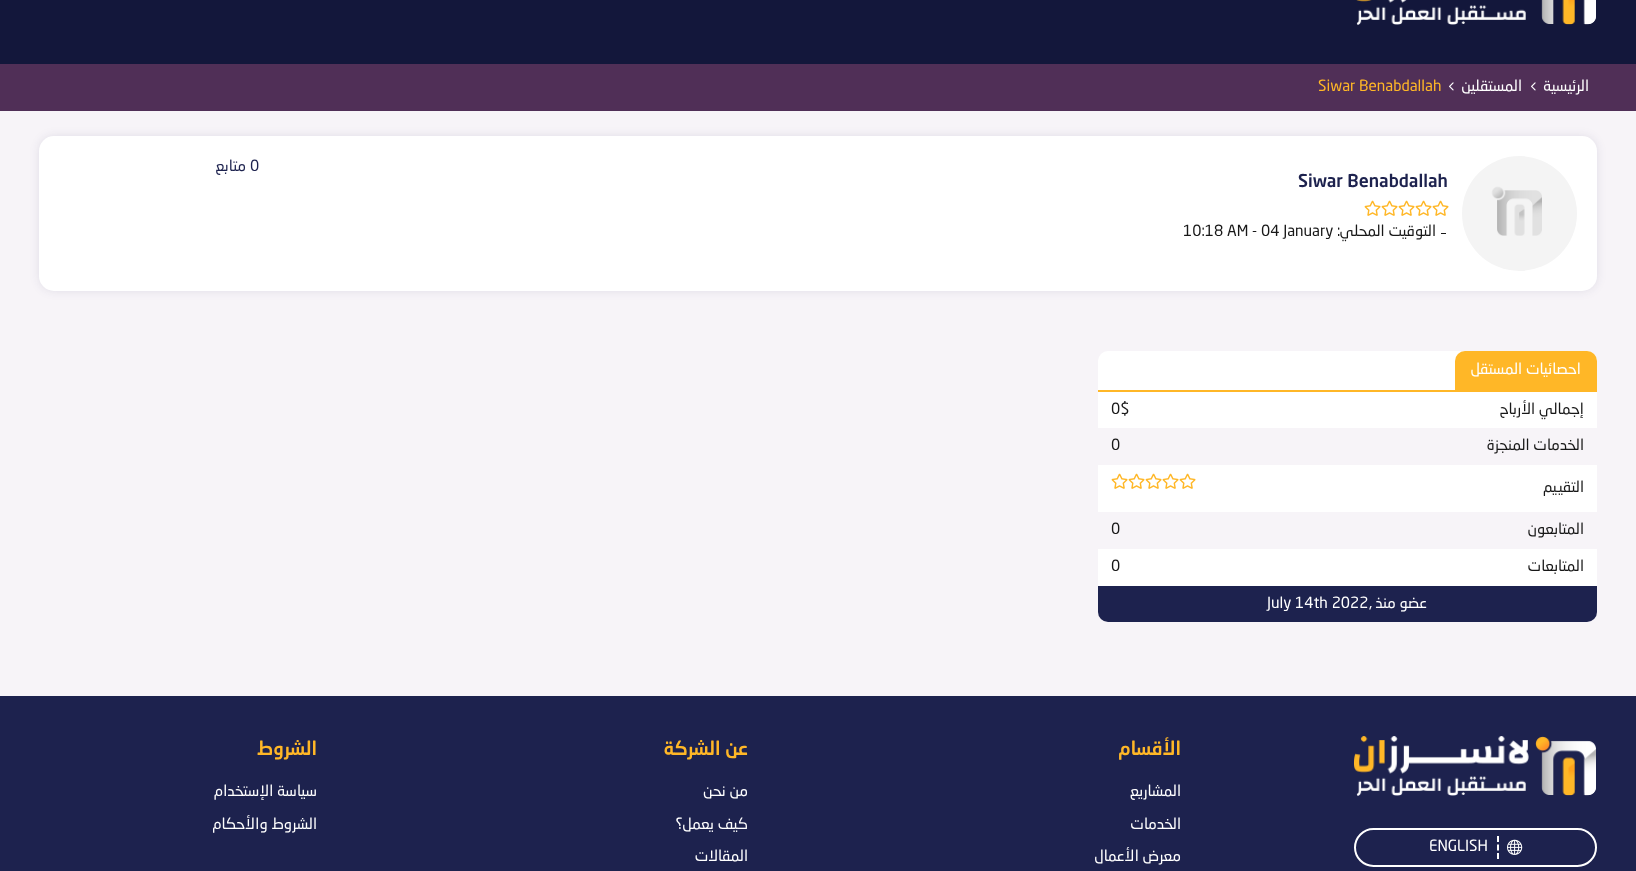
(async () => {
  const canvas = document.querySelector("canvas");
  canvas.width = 1636;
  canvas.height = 871;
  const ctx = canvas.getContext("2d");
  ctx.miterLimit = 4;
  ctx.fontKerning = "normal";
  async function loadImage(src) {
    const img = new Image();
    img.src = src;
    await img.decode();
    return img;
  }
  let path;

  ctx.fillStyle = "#f7f4f8";
  ctx.fillRect(0, 0, 1636, 871);
  ctx.fillStyle = "#13173b";
  ctx.fillRect(0, 0, 1636, 64);
  ctx.drawImage(await loadImage("img/1.png"), 1356, 0, 240, 25);
  ctx.fillStyle = "#502f57";
  ctx.fillRect(0, 64, 1636, 47);
  ctx.drawImage(await loadImage("img/2.png"), 1531, 82, 5, 9);
  ctx.drawImage(await loadImage("img/2.png"), 1449, 82, 5, 9);
  ctx.fillStyle = "rgba(29, 34, 78, 0.1)";
  ctx.filter = "blur(5px)";
  ctx.beginPath();
  ctx.roundRect(39, 136, 1558, 155, 15);
  ctx.fill();
  ctx.filter = "none";
  ctx.fillStyle = "#ffffff";
  ctx.beginPath();
  ctx.roundRect(39, 136, 1558, 155, 15);
  ctx.fill();
  ctx.drawImage(await loadImage("img/3.png"), 1462, 156, 115, 115);
  ctx.drawImage(await loadImage("img/4.png"), 1432, 200, 17, 16);
  ctx.drawImage(await loadImage("img/4.png"), 1415, 200, 17, 16);
  ctx.drawImage(await loadImage("img/4.png"), 1398, 200, 17, 16);
  ctx.drawImage(await loadImage("img/4.png"), 1381, 200, 17, 16);
  ctx.drawImage(await loadImage("img/4.png"), 1364, 200, 17, 16);
  ctx.fillStyle = "#181818";
  ctx.fillRect(1441, 233, 5, 1);
  ctx.fillStyle = "#ffffff";
  ctx.beginPath();
  ctx.roundRect(1098, 351, 499, 41, [10, 10, 0, 0]);
  ctx.fill();
  ctx.fillStyle = "#ffb727";
  ctx.fillRect(1098, 390, 499, 2);
  ctx.beginPath();
  ctx.roundRect(1455, 351, 142, 39, [10, 10, 0, 0]);
  ctx.fill();
  ctx.fillStyle = "#ffffff";
  ctx.fillRect(1098, 392, 499, 36);
  ctx.fillRect(1098, 465, 499, 47);
  ctx.drawImage(await loadImage("img/4.png"), 1179, 473, 17, 16);
  ctx.drawImage(await loadImage("img/4.png"), 1162, 473, 17, 16);
  ctx.drawImage(await loadImage("img/4.png"), 1145, 473, 17, 16);
  ctx.drawImage(await loadImage("img/4.png"), 1128, 473, 17, 16);
  ctx.drawImage(await loadImage("img/4.png"), 1111, 473, 17, 16);
  ctx.fillRect(1098, 549, 499, 37);
  ctx.fillStyle = "#1d224e";
  ctx.beginPath();
  ctx.roundRect(1098, 586, 499, 36, [0, 0, 10, 10]);
  ctx.fill();
  ctx.fillRect(0, 696, 1636, 175);
  ctx.drawImage(await loadImage("img/5.png"), 1354, 736, 242, 60);
  ctx.beginPath();
  ctx.roundRect(1355, 829, 241, 37, 18.5);
  ctx.strokeStyle = "#ffffff";
  ctx.lineWidth = 2;
  ctx.stroke();
  ctx.drawImage(await loadImage("img/6.png"), 1507, 839, 16, 16);
  path = new Path2D("M1498 836V842M1498 844.5V850.5M1498 853V859");
  ctx.stroke(path);
  ctx.direction = "rtl";
  ctx.font = "15.25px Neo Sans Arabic";
  ctx.fillStyle = "#ffffff";
  ctx.fillText("الرئيسية", 1589, 91);
  ctx.fillText("المستقلين", 1522, 91);
  ctx.direction = "ltr";
  ctx.fillStyle = "#ffb727";
  ctx.fillText("Siwar Benabdallah", 1318, 91);
  ctx.fillStyle = "#1d224e";
  ctx.fillText("0", 250, 171);
  ctx.direction = "rtl";
  ctx.fillText("متابع", 246, 171);
  ctx.direction = "ltr";
  ctx.font = "500 17.5px Neo Sans Arabic";
  ctx.fillText("Siwar Benabdallah", 1298, 187);
  ctx.direction = "rtl";
  ctx.font = "15.25px Neo Sans Arabic";
  ctx.fillStyle = "#181818";
  ctx.fillText("التوقيت المحلي", 1436, 236);
  ctx.direction = "ltr";
  for (const [text, x, y] of [
    [":", 1337, 236],
    ["04 January", 1261, 236],
    ["-", 1252, 236],
    ["10:18 AM", 1183, 236],
  ]) {
    ctx.fillText(text, x, y);
  }
  ctx.direction = "rtl";
  ctx.fillStyle = "#ffffff";
  ctx.fillText("احصائيات المستقل", 1581, 374);
  ctx.fillStyle = "#181818";
  ctx.fillText("إجمالي الأرباح", 1584, 414);
  ctx.direction = "ltr";
  ctx.fillText("0$", 1111, 414);
  ctx.direction = "rtl";
  ctx.fillText("الخدمات المنجزة", 1584, 450);
  ctx.direction = "ltr";
  ctx.fillText("0", 1111, 450);
  ctx.direction = "rtl";
  ctx.fillText("التقييم", 1584, 492);
  ctx.fillText("المتابعون", 1584, 534);
  ctx.direction = "ltr";
  ctx.fillText("0", 1111, 534);
  ctx.direction = "rtl";
  ctx.fillText("المتابعات", 1584, 571);
  ctx.direction = "ltr";
  ctx.fillText("0", 1111, 571);
  ctx.direction = "rtl";
  ctx.fillStyle = "#ffffff";
  ctx.fillText("عضو منذ", 1427, 608);
  ctx.direction = "ltr";
  for (const [text, x, y] of [
    [",", 1369, 608],
    ["July 14th 2022", 1267, 608],
    ["ENGLISH", 1429, 851],
  ]) {
    ctx.fillText(text, x, y);
  }
  ctx.direction = "rtl";
  ctx.font = "500 19px Neo Sans Arabic";
  ctx.fillStyle = "#ffb727";
  ctx.fillText("الأقسام", 1181, 755);
  ctx.font = "15.25px Neo Sans Arabic";
  ctx.fillStyle = "#ffffff";
  for (const [text, x, y] of [
    ["المشاريع", 1181, 796],
    ["الخدمات", 1181, 829],
    ["معرض الأعمال", 1181, 861],
  ]) {
    ctx.fillText(text, x, y);
  }
  ctx.font = "500 19px Neo Sans Arabic";
  ctx.fillStyle = "#ffb727";
  ctx.fillText("عن الشركة", 748, 755);
  ctx.font = "15.25px Neo Sans Arabic";
  ctx.fillStyle = "#ffffff";
  for (const [text, x, y] of [
    ["من نحن", 748, 796],
    ["كيف يعمل؟", 748, 829],
    ["المقالات", 748, 861],
  ]) {
    ctx.fillText(text, x, y);
  }
  ctx.font = "500 19px Neo Sans Arabic";
  ctx.fillStyle = "#ffb727";
  ctx.fillText("الشروط", 317, 755);
  ctx.font = "15.25px Neo Sans Arabic";
  ctx.fillStyle = "#ffffff";
  ctx.fillText("سياسة الإستخدام", 317, 796);
  ctx.fillText("الشروط والأحكام", 317, 829);
})();
